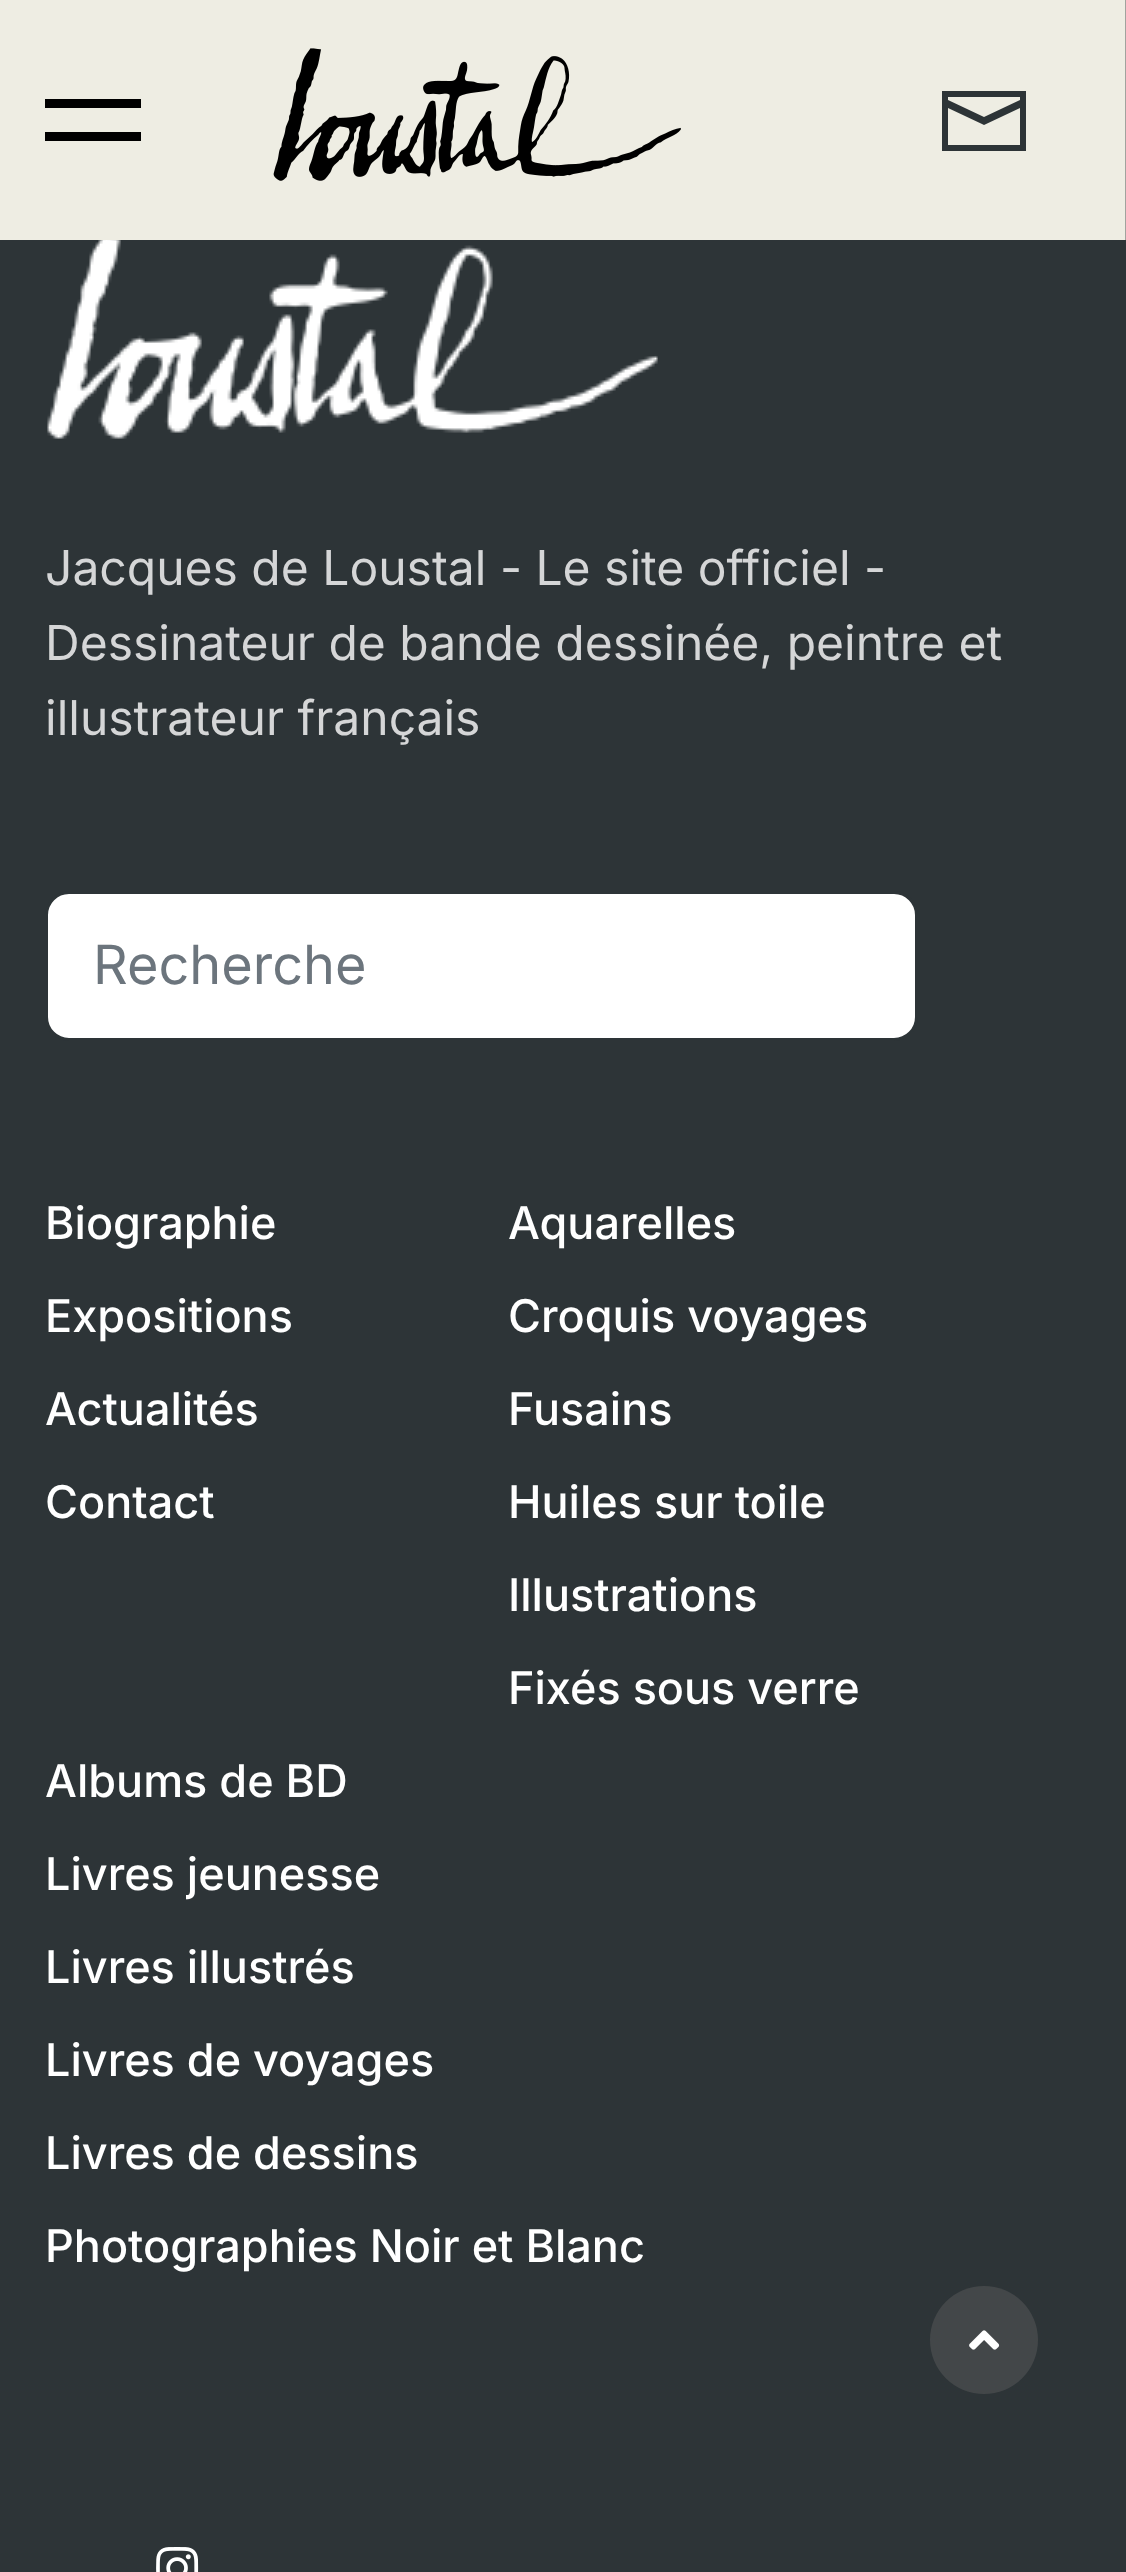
(async () => {
  const canvas = document.querySelector("canvas");
  canvas.width = 1126;
  canvas.height = 2572;
  const ctx = canvas.getContext("2d");
  ctx.miterLimit = 4;
  ctx.fontKerning = "normal";
  async function loadImage(src) {
    const img = new Image();
    img.src = src;
    await img.decode();
    return img;
  }
  let path;

  ctx.fillStyle = "#2d3437";
  ctx.fillRect(0, 0, 1126, 2572);
  for (const [x, y, w, h, color] of [
    [0, 0, 1125, 240, "#eeede3"],
    [1125, 0, 1, 240, "#a1a39e"],
    [45, 99, 96, 9, "#000000"],
    [45, 132, 96, 9, "#000000"],
  ]) {
    ctx.fillStyle = color;
    ctx.fillRect(x, y, w, h);
  }
  ctx.drawImage(await loadImage("img/1.png"), 273, 48, 408, 133);
  ctx.fillStyle = "#2d3437";
  path = new Path2D("M945 91H942V151H1026V91H1023ZM948 100V97H1020V100L984 117ZM948 108V145H1020V108L984 125L982 124Z");
  ctx.fill(path, "evenodd");
  ctx.drawImage(await loadImage("img/2.png"), 47, 240, 611, 199);
  ctx.fillStyle = "#ffffff";
  ctx.beginPath();
  ctx.roundRect(46.5, 892.5, 870, 147, 22.5);
  ctx.fill();
  ctx.strokeStyle = "#2d3437";
  ctx.lineWidth = 3;
  ctx.stroke();
  ctx.drawImage(await loadImage("img/3.png"), 156, 2547, 43, 25);
  ctx.fillStyle = "#434749";
  ctx.beginPath();
  ctx.arc(984, 2340, 54, 0, Math.PI * 2);
  ctx.fill();
  ctx.drawImage(await loadImage("img/4.png"), 969, 2330, 31, 20);
  ctx.font = "48px Inter";
  ctx.fillStyle = "#d5d6d7";
  for (const [text, x, y] of [
    ["Jacques de Loustal - Le site officiel -", 45, 585],
    ["Dessinateur de bande dessinée, peintre et", 45, 660],
    ["illustrateur français", 45, 735],
  ]) {
    ctx.fillText(text, x, y);
  }
  ctx.font = "54px Inter";
  ctx.fillStyle = "#6c757d";
  ctx.fillText("Recherche", 93, 984);
  ctx.font = "500 45px Inter";
  ctx.fillStyle = "#ffffff";
  for (const [text, x, y] of [
    ["Biographie", 45, 1239],
    ["Expositions", 45, 1332],
    ["Actualités", 45, 1425],
    ["Contact", 45, 1518],
    ["Aquarelles", 508, 1239],
    ["Croquis voyages", 508, 1332],
    ["Fusains", 508, 1425],
    ["Huiles sur toile", 508, 1518],
    ["Illustrations", 508, 1611],
    ["Fixés sous verre", 508, 1704],
    ["Albums de BD", 45, 1797],
    ["Livres jeunesse", 45, 1890],
    ["Livres illustrés", 45, 1983],
    ["Livres de voyages", 45, 2076],
    ["Livres de dessins", 45, 2169],
    ["Photographies Noir et Blanc", 45, 2262],
  ]) {
    ctx.fillText(text, x, y);
  }
})();
